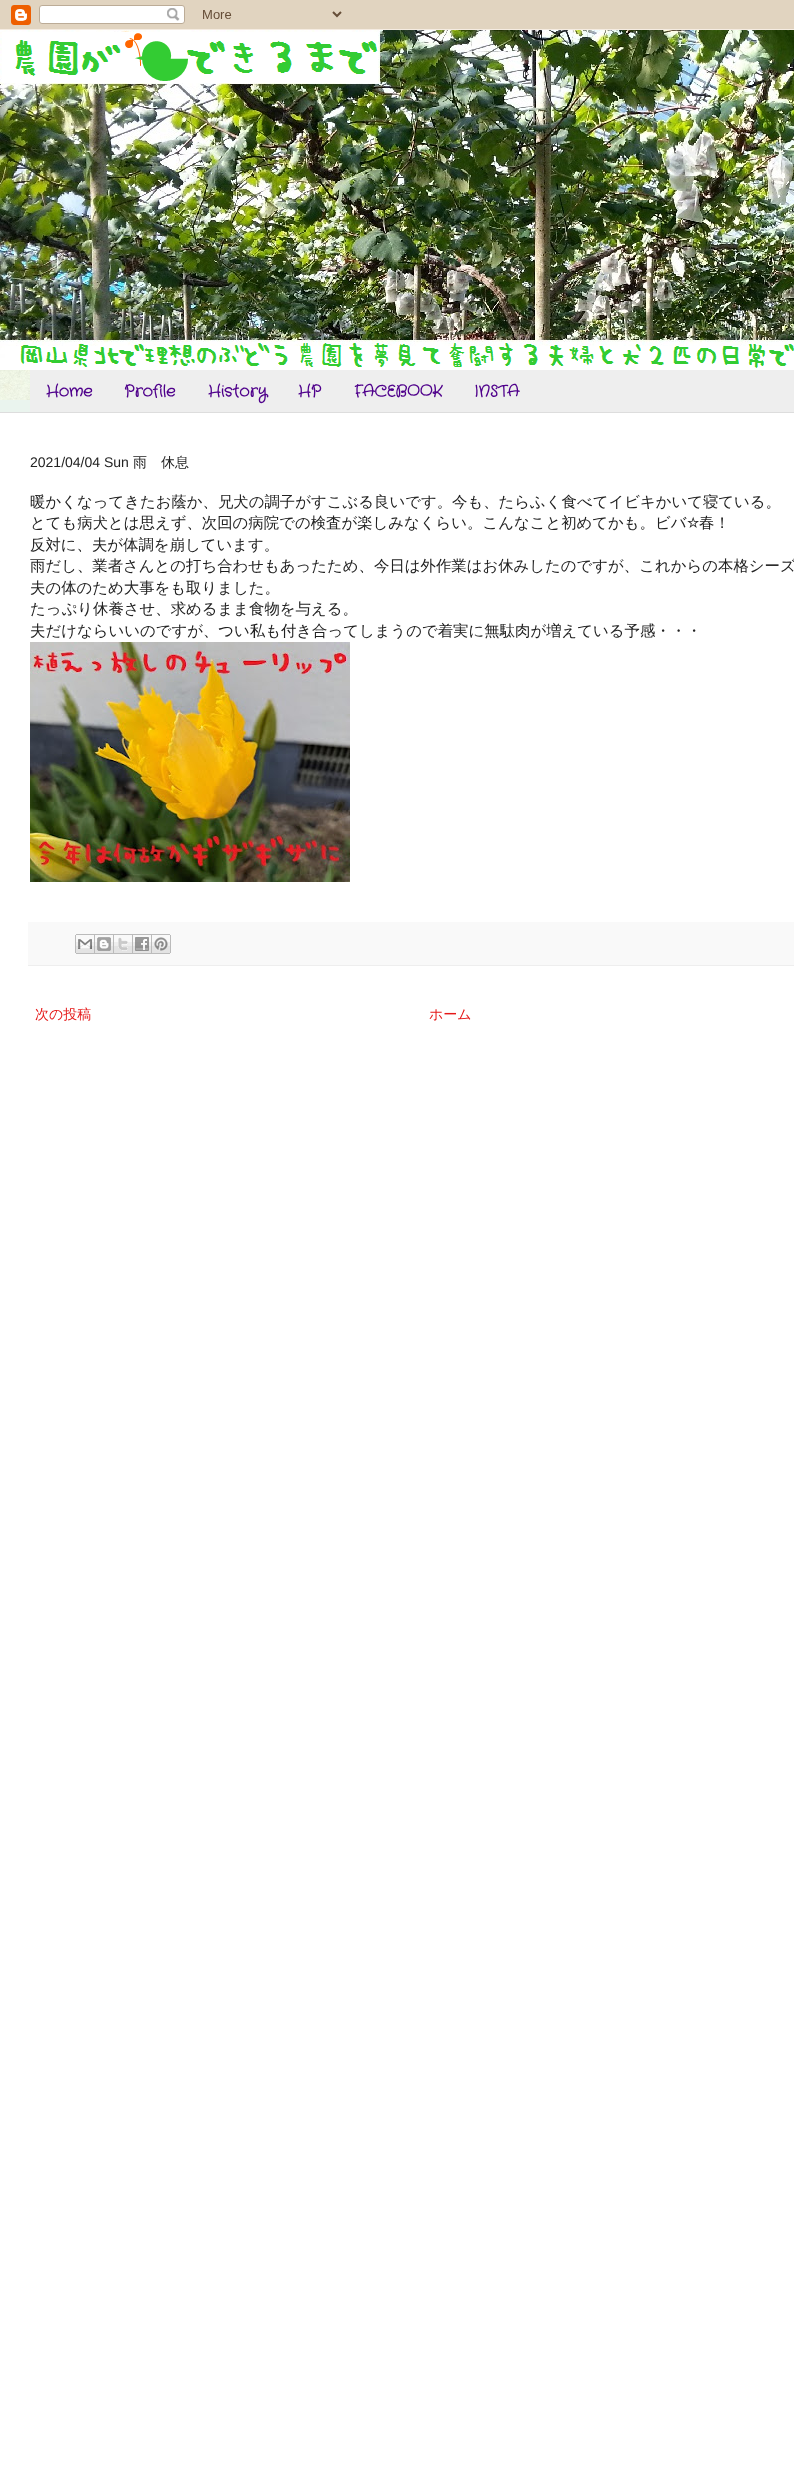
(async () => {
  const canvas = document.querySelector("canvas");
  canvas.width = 794;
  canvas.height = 2484;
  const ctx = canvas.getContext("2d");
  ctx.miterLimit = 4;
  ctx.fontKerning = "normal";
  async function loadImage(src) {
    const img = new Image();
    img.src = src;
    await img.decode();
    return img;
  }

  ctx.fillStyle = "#eaf4ee";
  ctx.fillRect(0, 0, 794, 2484);
  ctx.drawImage(await loadImage("img/1.png"), 0, 0, 794, 30);
  ctx.drawImage(await loadImage("img/2.png"), 0, 370, 30, 30);
  ctx.drawImage(await loadImage("img/3.png"), 0, 370, 30, 30);
  ctx.drawImage(await loadImage("img/4.png"), 0, 30, 794, 340);
  for (const [x, y, w, h, color] of [
    [30, 370, 764, 42, "#eeeeee"],
    [0, 413, 794, 2071, "#ffffff"],
    [0, 412, 794, 1, "#dddddd"],
  ]) {
    ctx.fillStyle = color;
    ctx.fillRect(x, y, w, h);
  }
  ctx.drawImage(await loadImage("img/5.png"), 30, 642, 320, 240);
  ctx.fillStyle = "#f9f9f9";
  ctx.fillRect(28, 922, 766, 43);
  ctx.fillStyle = "#eeeeee";
  ctx.fillRect(28, 965, 766, 1);
  ctx.drawImage(await loadImage("img/6.png"), 75, 934, 20, 20);
  ctx.drawImage(await loadImage("img/7.png"), 95, 934, 19, 20);
  ctx.drawImage(await loadImage("img/8.png"), 114, 934, 19, 20);
  ctx.drawImage(await loadImage("img/9.png"), 133, 934, 19, 20);
  ctx.drawImage(await loadImage("img/10.png"), 152, 934, 19, 20);
  ctx.font = "bold 16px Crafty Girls";
  ctx.fillStyle = "#4f008b";
  for (const [text, x, y] of [
    ["Home", 46, 396],
    ["Profile", 124, 396],
    ["History", 208, 396],
    ["HP", 298, 396],
    ["FACEBOOK", 354, 396],
    ["INSTA", 474, 396],
  ]) {
    ctx.fillText(text, x, y);
  }
  ctx.font = "14px Liberation Sans";
  ctx.fillStyle = "#222222";
  ctx.fillText("2021/04/04 Sun", 30, 467);
  ctx.font = "500 14px WenQuanYi Zen Hei";
  ctx.fillText("雨　休息", 133, 467);
  ctx.font = "500 15.4px WenQuanYi Zen Hei";
  ctx.fillText("暖かくなってきたお蔭か、兄犬の調子がすこぶる良いです。今も、たらふく食べてイビキかいて寝ている。", 30, 507);
  ctx.fillText("とても病犬とは思えず、次回の病院での検査が楽しみなくらい。こんなこと初めてかも。ビバ", 30, 528);
  ctx.font = "15.4px FreeSans";
  ctx.fillText("☆", 687, 528);
  ctx.font = "500 15.4px WenQuanYi Zen Hei";
  for (const [text, x, y] of [
    ["春！", 699, 528],
    ["反対に、夫が体調を崩しています。", 30, 550],
    ["雨だし、業者さんとの打ち合わせもあったため、今日は外作業はお休みしたのですが、これからの本格シーズ", 30, 571],
    ["夫の体のため大事をも取りました。", 30, 593],
    ["たっぷり休養させ、求めるまま食物を与える。", 30, 614],
    ["夫だけならいいのですが、つい私も付き合ってしまうので着実に無駄肉が増えている予感・・・", 30, 636],
  ]) {
    ctx.fillText(text, x, y);
  }
  ctx.font = "500 14px WenQuanYi Zen Hei";
  ctx.fillStyle = "#e51818";
  ctx.fillText("次の投稿", 35, 1019);
  ctx.fillText("ホーム", 429, 1019);
})();
